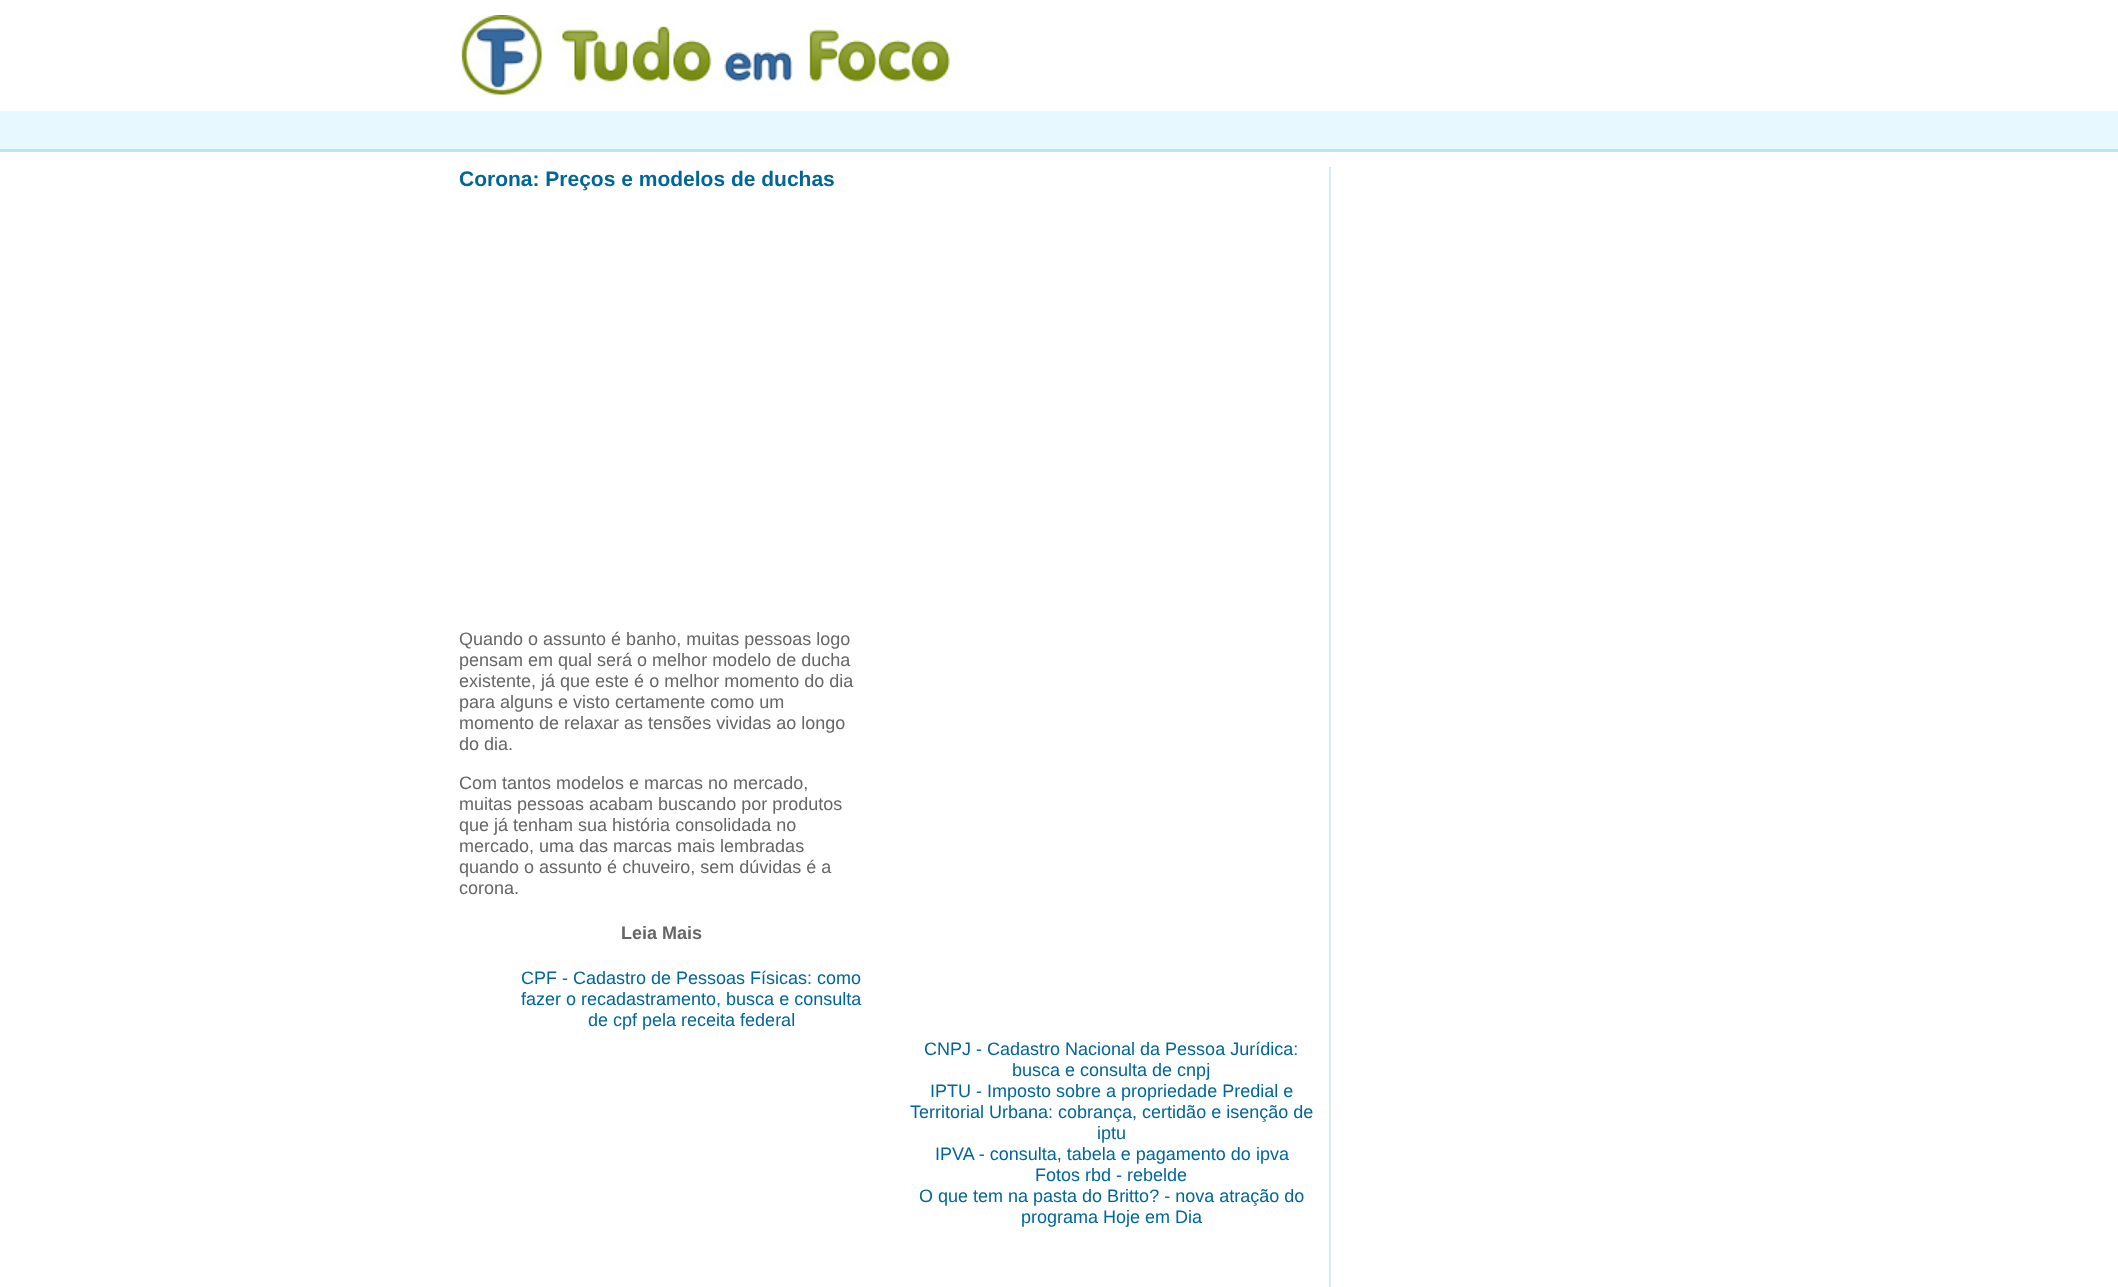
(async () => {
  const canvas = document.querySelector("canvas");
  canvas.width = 2118;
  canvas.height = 1287;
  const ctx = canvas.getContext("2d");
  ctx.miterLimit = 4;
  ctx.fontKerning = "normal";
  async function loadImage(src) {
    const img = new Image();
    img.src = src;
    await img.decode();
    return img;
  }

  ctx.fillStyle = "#ffffff";
  ctx.fillRect(0, 0, 2118, 1287);
  ctx.drawImage(await loadImage("img/1.png"), 459, 15, 492, 81);
  for (const [x, y, w, h, color] of [
    [0, 111, 2118, 38, "#e7f9ff"],
    [0, 149, 2118, 3, "#bce1f4"],
    [1329, 167, 2, 1120, "#d8eaf3"],
  ]) {
    ctx.fillStyle = color;
    ctx.fillRect(x, y, w, h);
  }
  ctx.font = "bold 21px Liberation Sans";
  ctx.fillStyle = "#006699";
  ctx.fillText("Corona: Preços e modelos de duchas", 459, 186);
  ctx.font = "18px Liberation Sans";
  ctx.fillStyle = "#666666";
  for (const [text, x, y] of [
    ["Quando o assunto é banho, muitas pessoas logo", 459, 645],
    ["pensam em qual será o melhor modelo de ducha", 459, 666],
    ["existente, já que este é o melhor momento do dia", 459, 687],
    ["para alguns e visto certamente como um", 459, 708],
    ["momento de relaxar as tensões vividas ao longo", 459, 729],
    ["do dia.", 459, 750],
    ["Com tantos modelos e marcas no mercado,", 459, 789],
    ["muitas pessoas acabam buscando por produtos", 459, 810],
    ["que já tenham sua história consolidada no", 459, 831],
    ["mercado, uma das marcas mais lembradas", 459, 852],
    ["quando o assunto é chuveiro, sem dúvidas é a", 459, 873],
    ["corona.", 459, 894],
  ]) {
    ctx.fillText(text, x, y);
  }
  ctx.font = "bold 18px Liberation Sans";
  ctx.fillText("Leia Mais", 621, 939);
  ctx.font = "18px Liberation Sans";
  ctx.fillStyle = "#006699";
  for (const [text, x, y] of [
    ["CPF - Cadastro de Pessoas Físicas: como", 521, 984],
    ["fazer o recadastramento, busca e consulta", 521, 1005],
    ["de cpf pela receita federal", 588, 1026],
    ["CNPJ - Cadastro Nacional da Pessoa Jurídica:", 924, 1055],
    ["busca e consulta de cnpj", 1012, 1076],
    ["IPTU - Imposto sobre a propriedade Predial e", 930, 1097],
    ["Territorial Urbana: cobrança, certidão e isenção de", 910, 1118],
    ["iptu", 1097, 1139],
    ["IPVA - consulta, tabela e pagamento do ipva", 935, 1160],
    ["Fotos rbd - rebelde", 1035, 1181],
    ["O que tem na pasta do Britto? - nova atração do", 919, 1202],
    ["programa Hoje em Dia", 1021, 1223],
  ]) {
    ctx.fillText(text, x, y);
  }
})();
